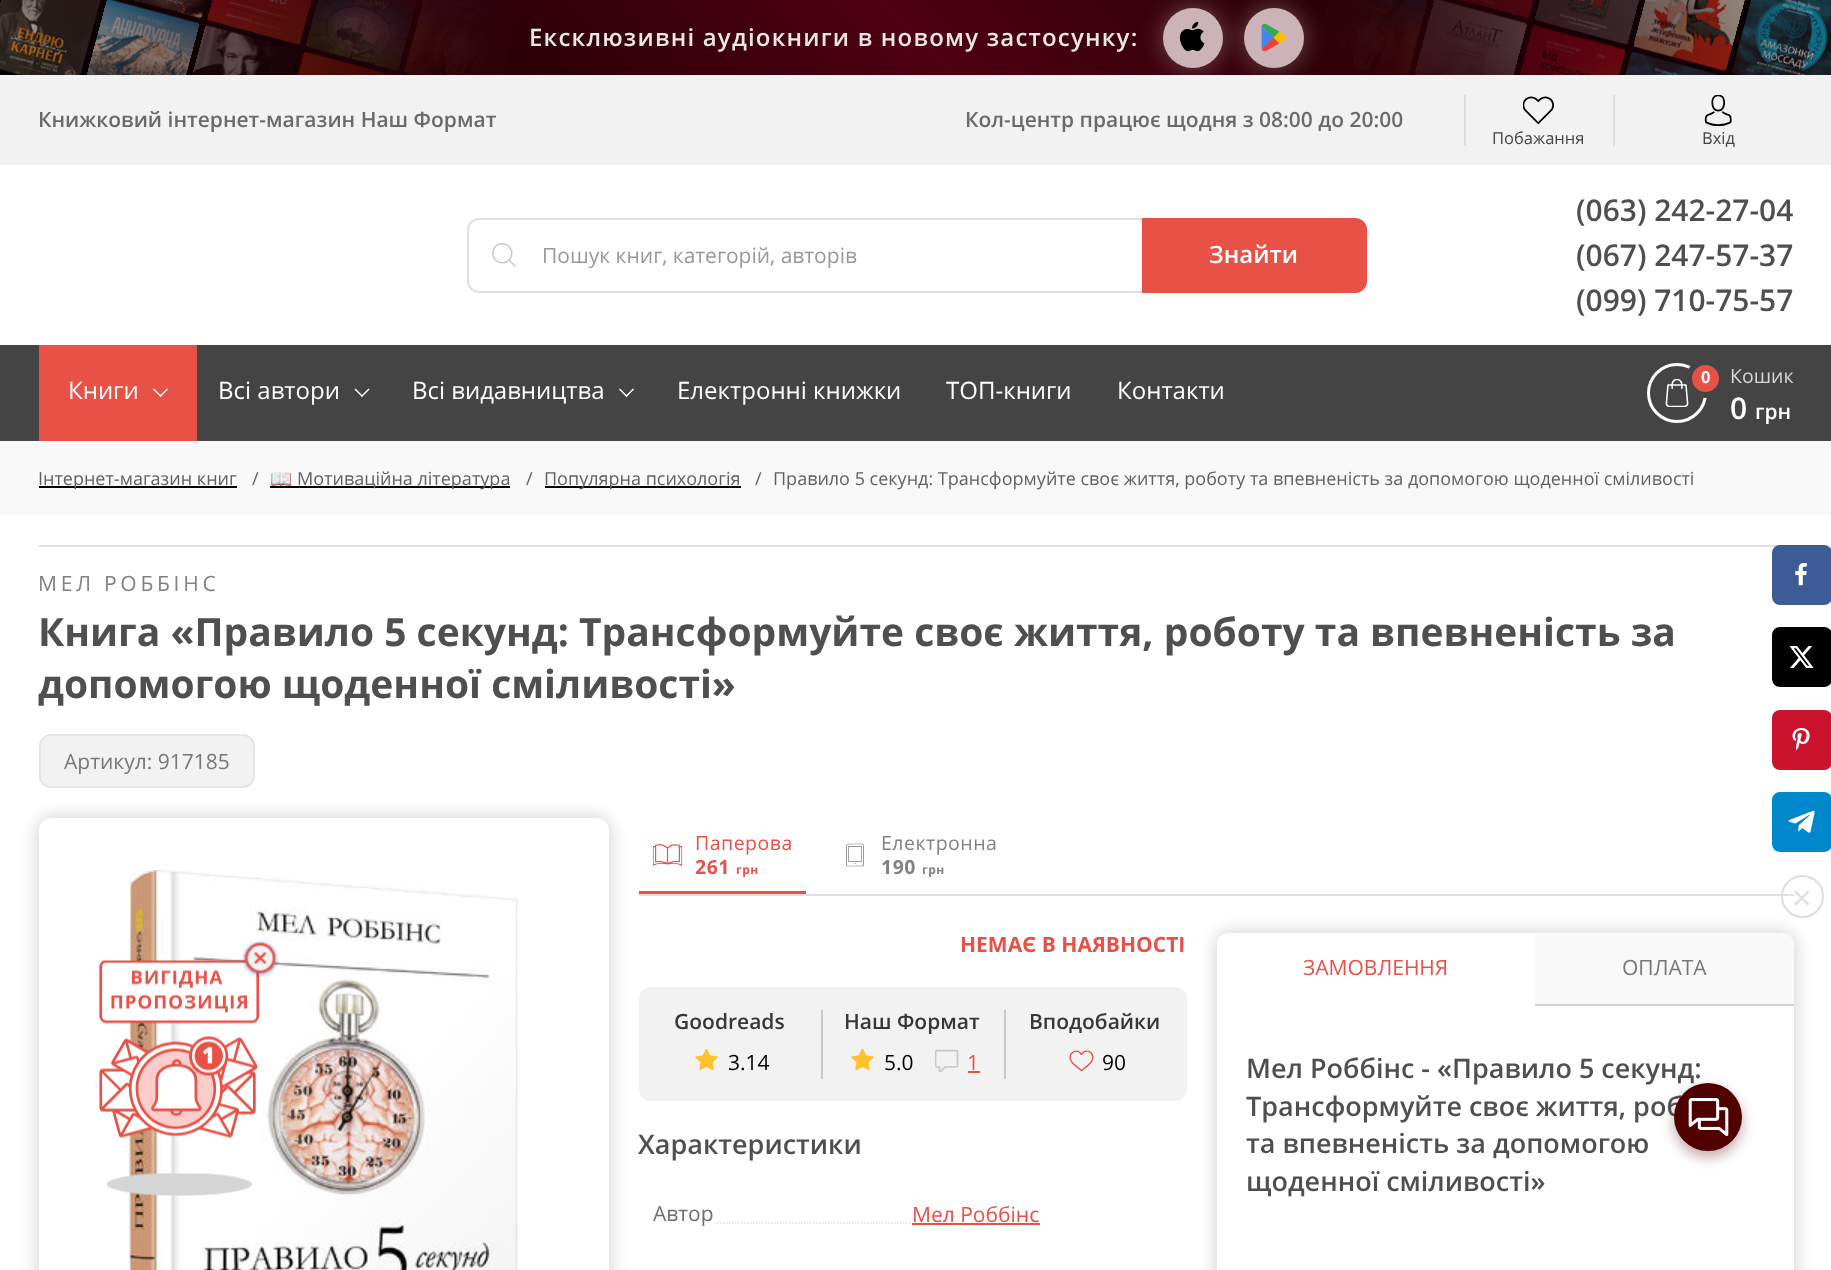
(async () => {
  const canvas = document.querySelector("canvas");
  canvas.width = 1831;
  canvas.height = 1270;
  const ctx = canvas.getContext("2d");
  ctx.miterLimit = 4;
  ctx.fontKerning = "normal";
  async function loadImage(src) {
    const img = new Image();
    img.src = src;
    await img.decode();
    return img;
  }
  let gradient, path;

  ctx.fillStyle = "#ffffff";
  ctx.fillRect(0, 0, 1831, 1270);
  ctx.fillStyle = "#000000";
  ctx.fillRect(0, 0, 1831, 75);
  ctx.drawImage(await loadImage("img/1.png"), 0, 0, 101, 75);
  ctx.drawImage(await loadImage("img/2.png"), 87, 0, 119, 75);
  ctx.drawImage(await loadImage("img/3.png"), 192, 0, 120, 75);
  ctx.drawImage(await loadImage("img/4.png"), 298, 0, 119, 75);
  ctx.drawImage(await loadImage("img/5.png"), 404, 0, 119, 75);
  gradient = ctx.createLinearGradient(0, 38, 528, 37);
  gradient.addColorStop(0, "rgba(0, 0, 0, 0.2)");
  gradient.addColorStop(1, "#000000");
  ctx.fillStyle = gradient;
  ctx.fillRect(0, 0, 523, 75);
  ctx.drawImage(await loadImage("img/8.png"), 1309, 0, 119, 75);
  ctx.drawImage(await loadImage("img/9.png"), 1414, 0, 120, 75);
  ctx.drawImage(await loadImage("img/10.png"), 1520, 0, 119, 75);
  ctx.drawImage(await loadImage("img/11.png"), 1625, 0, 120, 75);
  ctx.drawImage(await loadImage("img/12.png"), 1731, 0, 100, 75);
  gradient = ctx.createLinearGradient(1304, 38, 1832, 37);
  gradient.addColorStop(0, "#000000");
  gradient.addColorStop(1, "rgba(0, 0, 0, 0.2)");
  ctx.fillStyle = gradient;
  ctx.fillRect(1309, 0, 522, 75);
  gradient = ctx.createLinearGradient(439, 514, 1392, -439);
  gradient.addColorStop(0, "rgba(79, 0, 17, 0)");
  gradient.addColorStop(0.5, "#4f0011");
  gradient.addColorStop(1, "rgba(79, 0, 17, 0)");
  ctx.fillStyle = gradient;
  ctx.fillRect(0, 0, 1831, 75);
  ctx.fillStyle = "#f2f2f2";
  ctx.fillRect(0, 75, 1831, 90);
  ctx.fillStyle = "rgba(255, 255, 255, 0.3)";
  ctx.filter = "blur(12px)";
  ctx.beginPath();
  ctx.roundRect(1163, 8, 60, 60, 30);
  ctx.fill();
  ctx.filter = "none";
  ctx.fillStyle = "#cbb3b8";
  ctx.beginPath();
  ctx.arc(1193, 38, 30, 0, Math.PI * 2);
  ctx.fill();
  ctx.drawImage(await loadImage("img/6.png"), 1179, 21, 26, 31);
  ctx.fillStyle = "rgba(255, 255, 255, 0.3)";
  ctx.filter = "blur(12px)";
  ctx.beginPath();
  ctx.roundRect(1244, 8, 60, 60, 30);
  ctx.fill();
  ctx.filter = "none";
  ctx.fillStyle = "#cbb3b8";
  ctx.beginPath();
  ctx.arc(1274, 38, 30, 0, Math.PI * 2);
  ctx.fill();
  ctx.drawImage(await loadImage("img/7.png"), 1261, 23, 26, 29);
  ctx.fillStyle = "#dddddd";
  ctx.fillRect(1613, 95, 2, 51);
  ctx.fillRect(1464, 95, 2, 51);
  ctx.drawImage(await loadImage("img/13.png"), 1523, 96, 31, 28);
  ctx.drawImage(await loadImage("img/14.png"), 1704, 95, 28, 31);
  ctx.beginPath();
  ctx.roundRect(468, 219, 898, 73, 11);
  ctx.strokeStyle = "#e0e0e0";
  ctx.lineWidth = 2;
  ctx.stroke();
  ctx.drawImage(await loadImage("img/15.png"), 492, 243, 24, 24);
  ctx.fillStyle = "#e85146";
  ctx.beginPath();
  ctx.roundRect(1142, 218, 225, 75, [0, 12, 12, 0]);
  ctx.fill();
  ctx.fillStyle = "#444444";
  ctx.fillRect(0, 345, 1831, 96);
  ctx.fillStyle = "#e85146";
  ctx.fillRect(39, 345, 158, 96);
  ctx.fillStyle = "#ffffff";
  path = new Path2D("M167 388.5L168 389.5L160.5 397L159.5 396Z");
  ctx.fill(path);
  path = new Path2D("M154 388.5L161.5 396L160.5 397L153 389.5Z");
  ctx.fill(path);
  path = new Path2D("M368.5 388.5L369.5 389.5L362 397L361 396Z");
  ctx.fill(path);
  path = new Path2D("M355.5 388.5L363 396L362 397L354.5 389.5Z");
  ctx.fill(path);
  path = new Path2D("M633 388.5L634 389.5L626.5 397L625.5 396Z");
  ctx.fill(path);
  path = new Path2D("M620 388.5L627.5 396L626.5 397L619 389.5Z");
  ctx.fill(path);
  ctx.beginPath();
  ctx.arc(1677, 393, 28.5, 0, Math.PI * 2);
  ctx.strokeStyle = "#ffffff";
  ctx.lineWidth = 3;
  ctx.stroke();
  ctx.drawImage(await loadImage("img/16.png"), 1665, 379, 24, 28);
  ctx.fillStyle = "#e85146";
  ctx.beginPath();
  ctx.arc(1705.5, 378.5, 16.5, 0, Math.PI * 2);
  ctx.fill();
  ctx.strokeStyle = "#444444";
  ctx.lineWidth = 6;
  ctx.stroke();
  for (const [x, y, w, h, color] of [
    [0, 441, 1831, 74, "#f9f9f9"],
    [39, 486, 198, 2, "#000000"],
    [270, 486, 240, 2, "#000000"],
    [545, 486, 196, 2, "#000000"],
    [39, 545, 1741, 2, "#e0e0e0"],
  ]) {
    ctx.fillStyle = color;
    ctx.fillRect(x, y, w, h);
  }
  ctx.fillStyle = "#f2f2f2";
  ctx.beginPath();
  ctx.roundRect(40, 735, 214, 52, 11);
  ctx.fill();
  ctx.strokeStyle = "#e5e5e5";
  ctx.lineWidth = 2;
  ctx.stroke();
  ctx.save();
  path = new Path2D("M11 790H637V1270H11ZM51 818H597C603.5 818 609 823.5 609 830V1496C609 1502.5 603.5 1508 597 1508H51C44.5 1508 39 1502.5 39 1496V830C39 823.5 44.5 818 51 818Z");
  ctx.clip(path, "evenodd");
  ctx.fillStyle = "rgba(0, 0, 0, 0.2)";
  ctx.filter = "blur(9px)";
  ctx.beginPath();
  ctx.roundRect(39, 818, 570, 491, 12);
  ctx.fill();
  ctx.filter = "none";
  ctx.restore();
  ctx.drawImage(await loadImage("img/17.png"), 129, 870, 389, 400);
  ctx.fillStyle = "#e0e0e0";
  ctx.fillRect(639, 894, 1155, 2);
  ctx.fillStyle = "#e85146";
  ctx.fillRect(639, 891, 167, 3);
  ctx.drawImage(await loadImage("img/18.png"), 653, 844, 30, 22);
  ctx.drawImage(await loadImage("img/19.png"), 846, 843, 18, 24);
  ctx.fillStyle = "#f2f2f2";
  ctx.beginPath();
  ctx.roundRect(639, 987, 548, 114, 12);
  ctx.fill();
  ctx.fillStyle = "#c8c8c8";
  ctx.fillRect(821, 1010, 2, 69);
  ctx.drawImage(await loadImage("img/20.png"), 695, 1049, 23, 22);
  ctx.fillRect(1004, 1010, 2, 69);
  ctx.drawImage(await loadImage("img/20.png"), 851, 1049, 23, 22);
  ctx.drawImage(await loadImage("img/21.png"), 935, 1049, 24, 24);
  ctx.fillStyle = "#e85146";
  ctx.fillRect(968, 1071, 12, 2);
  ctx.drawImage(await loadImage("img/22.png"), 1069, 1050, 25, 22);
  path = new Path2D("M654 1223H912");
  ctx.strokeStyle = "#e0e0e0";
  ctx.lineWidth = 1.5;
  ctx.setLineDash([1.5, 1.5]);
  ctx.stroke(path);
  ctx.fillStyle = "#ffffff";
  ctx.fillRect(654, 1222, 59, 2);
  ctx.fillStyle = "#e85146";
  ctx.fillRect(912, 1223, 128, 2);
  ctx.save();
  path = new Path2D("M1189 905H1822V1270H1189ZM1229 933H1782C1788.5 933 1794 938.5 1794 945V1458C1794 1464.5 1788.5 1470 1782 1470H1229C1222.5 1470 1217 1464.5 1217 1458V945C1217 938.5 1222.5 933 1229 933Z");
  ctx.clip(path, "evenodd");
  ctx.fillStyle = "rgba(0, 0, 0, 0.2)";
  ctx.filter = "blur(9px)";
  ctx.beginPath();
  ctx.roundRect(1217, 933, 577, 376, 12);
  ctx.fill();
  ctx.filter = "none";
  ctx.restore();
  ctx.fillStyle = "#d2d2d2";
  ctx.fillRect(1535, 1004, 259, 2);
  ctx.fillStyle = "#ffffff";
  ctx.beginPath();
  ctx.roundRect(1217, 933, 318, 71, [12, 0, 0, 0]);
  ctx.fill();
  ctx.fillStyle = "#f9f9f9";
  ctx.beginPath();
  ctx.roundRect(1535, 933, 259, 71, [0, 12, 0, 0]);
  ctx.fill();
  ctx.fillStyle = "#3d5b95";
  ctx.beginPath();
  ctx.roundRect(1772, 545, 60, 60, 8);
  ctx.fill();
  ctx.drawImage(await loadImage("img/23.png"), 1795, 562, 12, 24);
  ctx.fillStyle = "#000000";
  ctx.beginPath();
  ctx.roundRect(1772, 627, 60, 60, 8);
  ctx.fill();
  ctx.drawImage(await loadImage("img/24.png"), 1789, 646, 25, 22);
  ctx.fillStyle = "#cb132d";
  ctx.beginPath();
  ctx.roundRect(1772, 710, 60, 60, 8);
  ctx.fill();
  ctx.drawImage(await loadImage("img/25.png"), 1792, 727, 18, 24);
  ctx.fillStyle = "#0088cc";
  ctx.beginPath();
  ctx.roundRect(1772, 792, 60, 60, 8);
  ctx.fill();
  ctx.drawImage(await loadImage("img/26.png"), 1788, 810, 27, 23);
  ctx.beginPath();
  ctx.arc(1802.5, 896.5, 20.5, 0, Math.PI * 2);
  ctx.strokeStyle = "#dedede";
  ctx.lineWidth = 2;
  ctx.setLineDash([]);
  ctx.stroke();
  ctx.drawImage(await loadImage("img/28.png"), 99, 960, 161, 178);
  ctx.drawImage(await loadImage("img/27.png"), 241, 940, 38, 38);
  ctx.drawImage(await loadImage("img/29.png"), 107, 1173, 145, 23);
  ctx.fillStyle = "rgba(81, 0, 0, 0.35)";
  ctx.filter = "blur(7px)";
  ctx.beginPath();
  ctx.roundRect(1674, 1089, 68, 68, 34);
  ctx.fill();
  ctx.filter = "none";
  ctx.letterSpacing = "1.2px";
  ctx.font = "600 24px Open Sans";
  ctx.fillStyle = "#ece6e7";
  ctx.fillText("Ексклюзивні аудіокниги в новому застосунку:", 529, 46);
  ctx.letterSpacing = "0px";
  ctx.font = "600 21px Open Sans";
  ctx.fillStyle = "#6a6a6a";
  ctx.fillText("Книжковий інтернет-магазин Наш Формат", 38, 127);
  ctx.fillText("Кол-центр працює щодня з 08:00 до 20:00", 965, 127);
  ctx.font = "16.5px Open Sans";
  ctx.fillStyle = "#444444";
  ctx.fillText("Побажання", 1492, 144);
  ctx.fillText("Вхід", 1702, 144);
  ctx.font = "21px Open Sans";
  ctx.fillStyle = "#999999";
  ctx.fillText("Пошук книг, категорій, авторів", 542, 263);
  ctx.font = "600 24px Open Sans";
  ctx.fillStyle = "#ffffff";
  ctx.fillText("Знайти", 1209, 263);
  ctx.font = "600 30px Open Sans";
  ctx.fillStyle = "#4f4f4f";
  for (const [text, x, y] of [
    ["(063) 242-27-04", 1576, 221],
    ["(067) 247-57-37", 1576, 266],
    ["(099) 710-75-57", 1576, 311],
  ]) {
    ctx.fillText(text, x, y);
  }
  ctx.font = "24px Open Sans";
  ctx.fillStyle = "#ffffff";
  for (const [text, x, y] of [
    ["Книги", 68, 399],
    ["Всі автори", 218, 399],
    ["Всі видавництва", 412, 399],
    ["Електронні книжки", 677, 399],
    ["ТОП-книги", 946, 399],
    ["Контакти", 1117, 399],
  ]) {
    ctx.fillText(text, x, y);
  }
  ctx.font = "bold 16.5px Open Sans";
  ctx.fillText("0", 1701, 383);
  ctx.font = "19.5px Open Sans";
  ctx.fillStyle = "#d7d7d7";
  ctx.fillText("Кошик", 1730, 383);
  ctx.font = "600 30px Open Sans";
  ctx.fillStyle = "#ffffff";
  ctx.fillText("0", 1730, 419);
  ctx.font = "600 21px Open Sans";
  ctx.fillText("грн", 1755, 419);
  ctx.font = "18px Open Sans";
  ctx.fillStyle = "#616161";
  ctx.fillText("Інтернет-магазин книг", 38, 485);
  ctx.fillText("/", 252, 485);
  ctx.font = "18px Noto Color Emoji";
  ctx.fillText("📖", 270, 485);
  ctx.font = "18px Open Sans";
  for (const [text, x, y] of [
    ["Мотиваційна література", 297, 485],
    ["/", 526, 485],
    ["Популярна психологія", 544, 485],
    ["/", 755, 485],
    ["Правило 5 секунд: Трансформуйте своє життя, роботу та впевненість за допомогою щоденної сміливості", 773, 485],
  ]) {
    ctx.fillText(text, x, y);
  }
  ctx.letterSpacing = "3.75px";
  ctx.font = "21px Open Sans";
  ctx.fillStyle = "#828282";
  ctx.fillText("МЕЛ РОББІНС", 38, 591);
  ctx.letterSpacing = "0px";
  ctx.font = "bold 39px Open Sans";
  ctx.fillStyle = "#4f4f4f";
  ctx.fillText("Книга «Правило 5 секунд: Трансформуйте своє життя, роботу та впевненість за", 38, 646);
  ctx.fillText("допомогою щоденної сміливості»", 38, 698);
  ctx.font = "21px Open Sans";
  ctx.fillStyle = "#77777b";
  ctx.fillText("Артикул: 917185", 64, 769);
  ctx.letterSpacing = "0.5px";
  ctx.font = "19.5px Open Sans";
  ctx.fillStyle = "#e85146";
  ctx.fillText("Паперова", 695, 850);
  ctx.font = "bold 19.5px Open Sans";
  ctx.fillText("261", 695, 874);
  ctx.font = "bold 12px Open Sans";
  ctx.fillText("грн", 736, 874);
  ctx.font = "19.5px Open Sans";
  ctx.fillStyle = "#828282";
  ctx.fillText("Електронна", 881, 850);
  ctx.font = "bold 19.5px Open Sans";
  ctx.fillText("190", 881, 874);
  ctx.font = "bold 12px Open Sans";
  ctx.fillText("грн", 922, 874);
  ctx.letterSpacing = "0px";
  ctx.font = "bold 21px Open Sans";
  ctx.fillStyle = "#e85146";
  ctx.fillText("НЕМАЄ В НАЯВНОСТІ", 960, 952);
  ctx.font = "600 21px Open Sans";
  ctx.fillStyle = "#373737";
  ctx.fillText("Goodreads", 674, 1029);
  ctx.font = "21px Open Sans";
  ctx.fillStyle = "#000000";
  ctx.fillText("3.14", 728, 1070);
  ctx.font = "600 21px Open Sans";
  ctx.fillStyle = "#373737";
  ctx.fillText("Наш Формат", 844, 1029);
  ctx.font = "21px Open Sans";
  ctx.fillStyle = "#000000";
  ctx.fillText("5.0", 884, 1070);
  ctx.fillStyle = "#e85146";
  ctx.fillText("1", 967, 1070);
  ctx.font = "600 21px Open Sans";
  ctx.fillStyle = "#373737";
  ctx.fillText("Вподобайки", 1029, 1029);
  ctx.font = "21px Open Sans";
  ctx.fillStyle = "#000000";
  ctx.fillText("90", 1102, 1070);
  ctx.font = "600 27px Open Sans";
  ctx.fillStyle = "#4f4f4f";
  ctx.fillText("Характеристики", 638, 1154);
  ctx.font = "21px Open Sans";
  ctx.fillStyle = "#6f6f73";
  ctx.fillText("Автор", 653, 1221);
  ctx.fillStyle = "#e85146";
  ctx.fillText("Мел Роббінс", 912, 1222);
  ctx.fillText("ЗАМОВЛЕННЯ", 1303, 975);
  ctx.fillStyle = "#77777b";
  ctx.fillText("ОПЛАТА", 1622, 975);
  ctx.font = "600 27px Open Sans";
  ctx.fillStyle = "#4f4f4f";
  for (const [text, x, y] of [
    ["Мел Роббінс - «Правило 5 секунд:", 1246, 1078],
    ["Трансформуйте своє життя, роб", 1246, 1116],
    ["та впевненість за допомогою", 1246, 1153],
    ["щоденної сміливості»", 1246, 1191],
  ]) {
    ctx.fillText(text, x, y);
  }
  ctx.font = "34px Open Sans";
  ctx.fillStyle = "#dedede";
  ctx.fillText("×", 1792, 910);
  ctx.fillStyle = "#510000";
  ctx.beginPath();
  ctx.arc(1708, 1117, 34, 0, Math.PI * 2);
  ctx.fill();
  ctx.drawImage(await loadImage("img/30.png"), 1688, 1098, 41, 39);
})();
